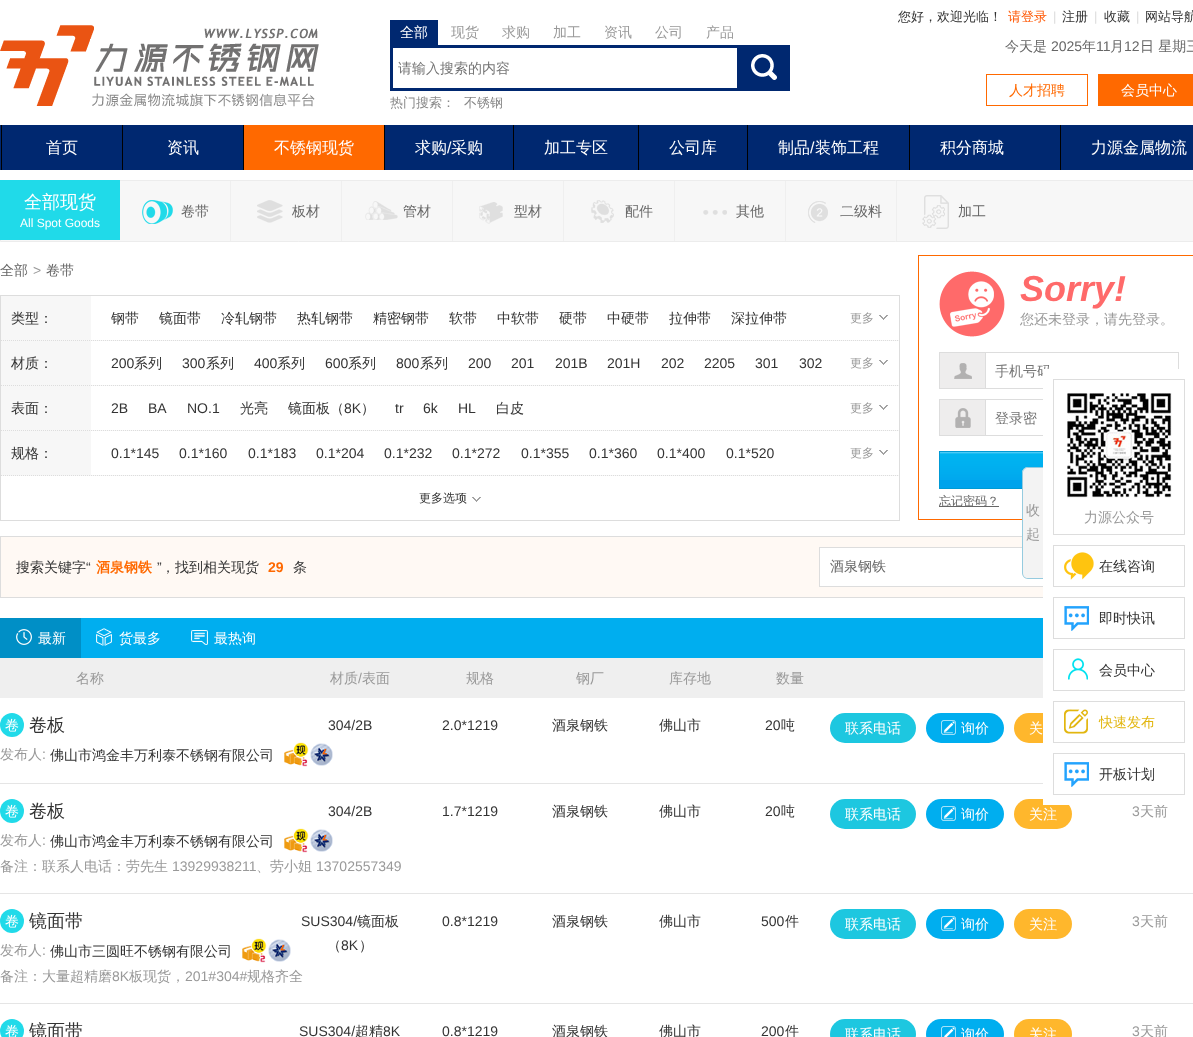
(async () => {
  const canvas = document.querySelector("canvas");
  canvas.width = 1193;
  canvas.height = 1037;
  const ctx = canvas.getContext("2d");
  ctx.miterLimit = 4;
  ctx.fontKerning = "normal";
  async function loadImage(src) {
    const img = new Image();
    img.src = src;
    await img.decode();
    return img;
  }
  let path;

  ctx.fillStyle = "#ffffff";
  ctx.fillRect(0, 0, 1193, 1037);
  ctx.drawImage(await loadImage("img/1.png"), 0, 25, 319, 82);
  ctx.fillStyle = "#002870";
  ctx.fillRect(390, 20, 48, 25);
  ctx.strokeStyle = "#002870";
  ctx.lineWidth = 3;
  ctx.strokeRect(391.5, 46.5, 397, 43);
  ctx.fillRect(737, 48, 50, 40);
  ctx.drawImage(await loadImage("img/2.png"), 751, 54, 26, 26);
  ctx.strokeStyle = "#ff6900";
  ctx.lineWidth = 1;
  ctx.strokeRect(986.5, 74.5, 101, 31);
  for (const [x, y, w, h, color] of [
    [1098, 74, 95, 32, "#ff6900"],
    [0, 125, 1193, 45, "#002870"],
    [122, 125, 1, 45, "#000000"],
    [1, 125, 1, 45, "#000000"],
    [243, 125, 1, 45, "#000000"],
    [244, 125, 140, 45, "#ff6900"],
    [384, 125, 1, 45, "#000000"],
    [513, 125, 1, 45, "#000000"],
    [638, 125, 1, 45, "#000000"],
    [747, 125, 1, 45, "#000000"],
    [909, 125, 1, 45, "#000000"],
    [1060, 125, 1, 45, "#000000"],
  ]) {
    ctx.fillStyle = color;
    ctx.fillRect(x, y, w, h);
  }
  ctx.fillStyle = "#f7f7f7";
  ctx.beginPath();
  ctx.rect(0.5, 180.5, 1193, 61);
  ctx.fill();
  ctx.strokeStyle = "#ececec";
  ctx.stroke();
  ctx.fillStyle = "#20dae9";
  ctx.fillRect(0, 180, 120, 60);
  ctx.fillStyle = "#efefef";
  ctx.fillRect(230, 181, 1, 60);
  ctx.drawImage(await loadImage("img/3.png"), 142, 200, 31, 24);
  ctx.fillRect(341, 181, 1, 60);
  ctx.drawImage(await loadImage("img/4.png"), 257, 200, 26, 23);
  ctx.fillRect(452, 181, 1, 60);
  ctx.drawImage(await loadImage("img/5.png"), 365, 201, 33, 19);
  ctx.fillRect(563, 181, 1, 60);
  ctx.drawImage(await loadImage("img/6.png"), 479, 202, 24, 22);
  ctx.fillRect(674, 181, 1, 60);
  ctx.drawImage(await loadImage("img/7.png"), 591, 200, 23, 23);
  ctx.fillRect(785, 181, 1, 60);
  ctx.drawImage(await loadImage("img/8.png"), 703, 210, 24, 5);
  ctx.fillRect(896, 181, 1, 60);
  ctx.drawImage(await loadImage("img/9.png"), 808, 201, 20, 22);
  ctx.drawImage(await loadImage("img/10.png"), 922, 195, 27, 34);
  ctx.strokeStyle = "#dddddd";
  ctx.strokeRect(0.5, 295.5, 899, 225);
  ctx.fillStyle = "#f7f7f7";
  ctx.fillRect(1, 296, 898, 180);
  path = new Path2D("M1 340.5H899");
  ctx.setLineDash([1, 1]);
  ctx.stroke(path);
  ctx.fillStyle = "#ffffff";
  ctx.fillRect(91, 296, 808, 44);
  ctx.drawImage(await loadImage("img/11.png"), 879, 315, 9, 5);
  path = new Path2D("M1 385.5H899");
  ctx.stroke(path);
  ctx.fillRect(91, 341, 808, 44);
  ctx.drawImage(await loadImage("img/11.png"), 879, 360, 9, 5);
  path = new Path2D("M1 430.5H899");
  ctx.stroke(path);
  ctx.fillRect(91, 386, 808, 44);
  ctx.drawImage(await loadImage("img/11.png"), 879, 405, 9, 5);
  path = new Path2D("M1 475.5H899");
  ctx.stroke(path);
  ctx.fillRect(91, 431, 808, 44);
  ctx.drawImage(await loadImage("img/11.png"), 879, 450, 9, 5);
  ctx.drawImage(await loadImage("img/11.png"), 472, 497, 9, 5);
  ctx.strokeStyle = "#ff6900";
  ctx.setLineDash([]);
  ctx.strokeRect(918.5, 255.5, 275, 264);
  ctx.drawImage(await loadImage("img/12.png"), 939, 271, 66, 66);
  ctx.strokeStyle = "#dddddd";
  ctx.strokeRect(939.5, 352.5, 239, 36);
  ctx.fillStyle = "#eeeded";
  ctx.fillRect(940, 353, 45, 35);
  ctx.fillStyle = "#dddddd";
  ctx.fillRect(985, 353, 1, 35);
  ctx.drawImage(await loadImage("img/13.png"), 954, 363, 18, 16);
  ctx.strokeRect(939.5, 399.5, 239, 36);
  ctx.fillStyle = "#eeeded";
  ctx.fillRect(940, 400, 45, 35);
  ctx.fillStyle = "#dddddd";
  ctx.fillRect(985, 400, 1, 35);
  ctx.drawImage(await loadImage("img/14.png"), 955, 408, 16, 20);
  ctx.fillStyle = "#00a3ec";
  ctx.fillRect(940, 480, 82, 8);
  ctx.drawImage(await loadImage("img/15.png"), 940, 452, 103, 28);
  ctx.strokeStyle = "#009ad5";
  ctx.strokeRect(939.5, 451.5, 239, 37);
  ctx.fillStyle = "#666666";
  ctx.fillRect(939, 506, 60, 1);
  ctx.fillStyle = "#fff9f4";
  ctx.fillRect(1, 537, 1042, 60);
  ctx.strokeStyle = "#dddddd";
  ctx.strokeRect(0.5, 536.5, 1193, 61);
  ctx.fillStyle = "#ffffff";
  ctx.fillRect(820, 548, 223, 38);
  ctx.strokeRect(819.5, 547.5, 321, 39);
  ctx.fillStyle = "#00aeef";
  ctx.fillRect(81, 618, 962, 40);
  ctx.fillStyle = "#008fc6";
  ctx.fillRect(0, 618, 81, 40);
  ctx.drawImage(await loadImage("img/16.png"), 16, 629, 16, 16);
  ctx.drawImage(await loadImage("img/17.png"), 96, 628, 16, 18);
  ctx.drawImage(await loadImage("img/18.png"), 191, 630, 17, 15);
  ctx.fillStyle = "#efefef";
  ctx.fillRect(0, 658, 1043, 40);
  ctx.fillStyle = "#e5e5e5";
  ctx.fillRect(0, 783, 1043, 1);
  ctx.fillStyle = "#21dae9";
  ctx.beginPath();
  ctx.arc(12, 725, 12, 0, Math.PI * 2);
  ctx.fill();
  ctx.drawImage(await loadImage("img/19.png"), 284, 742, 25, 25);
  ctx.drawImage(await loadImage("img/20.png"), 310, 743, 23, 23);
  ctx.fillStyle = "#1dc7e0";
  ctx.beginPath();
  ctx.roundRect(830, 713, 86, 30, 15);
  ctx.fill();
  ctx.fillStyle = "#00aeef";
  ctx.beginPath();
  ctx.roundRect(926, 713, 78, 30, 15);
  ctx.fill();
  ctx.drawImage(await loadImage("img/21.png"), 941, 720, 15, 15);
  ctx.fillStyle = "#ffb72c";
  ctx.beginPath();
  ctx.roundRect(1014, 713, 58, 30, 15);
  ctx.fill();
  ctx.fillStyle = "#e5e5e5";
  ctx.fillRect(0, 893, 1193, 1);
  ctx.fillStyle = "#21dae9";
  ctx.beginPath();
  ctx.arc(12, 811, 12, 0, Math.PI * 2);
  ctx.fill();
  ctx.drawImage(await loadImage("img/19.png"), 284, 828, 25, 25);
  ctx.drawImage(await loadImage("img/20.png"), 310, 829, 23, 23);
  ctx.fillStyle = "#1dc7e0";
  ctx.beginPath();
  ctx.roundRect(830, 799, 86, 30, 15);
  ctx.fill();
  ctx.fillStyle = "#00aeef";
  ctx.beginPath();
  ctx.roundRect(926, 799, 78, 30, 15);
  ctx.fill();
  ctx.drawImage(await loadImage("img/21.png"), 941, 806, 15, 15);
  ctx.fillStyle = "#ffb72c";
  ctx.beginPath();
  ctx.roundRect(1014, 799, 58, 30, 15);
  ctx.fill();
  ctx.fillStyle = "#e5e5e5";
  ctx.fillRect(0, 1003, 1193, 1);
  ctx.fillStyle = "#21dae9";
  ctx.beginPath();
  ctx.arc(12, 921, 12, 0, Math.PI * 2);
  ctx.fill();
  ctx.drawImage(await loadImage("img/19.png"), 242, 938, 25, 25);
  ctx.drawImage(await loadImage("img/20.png"), 268, 939, 23, 23);
  ctx.fillStyle = "#1dc7e0";
  ctx.beginPath();
  ctx.roundRect(830, 909, 86, 30, 15);
  ctx.fill();
  ctx.fillStyle = "#00aeef";
  ctx.beginPath();
  ctx.roundRect(926, 909, 78, 30, 15);
  ctx.fill();
  ctx.drawImage(await loadImage("img/21.png"), 941, 916, 15, 15);
  ctx.fillStyle = "#ffb72c";
  ctx.beginPath();
  ctx.roundRect(1014, 909, 58, 30, 15);
  ctx.fill();
  ctx.fillStyle = "#21dae9";
  ctx.beginPath();
  ctx.arc(12, 1031, 12, 0, Math.PI * 2);
  ctx.fill();
  ctx.fillStyle = "#1dc7e0";
  ctx.beginPath();
  ctx.roundRect(830, 1019, 86, 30, 15);
  ctx.fill();
  ctx.fillStyle = "#00aeef";
  ctx.beginPath();
  ctx.roundRect(926, 1019, 78, 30, 15);
  ctx.fill();
  ctx.drawImage(await loadImage("img/22.png"), 941, 1026, 15, 11);
  ctx.fillStyle = "#ffb72c";
  ctx.beginPath();
  ctx.roundRect(1014, 1019, 58, 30, 15);
  ctx.fill();
  ctx.fillStyle = "#f3f3f3";
  ctx.beginPath();
  ctx.roundRect(1022, 467, 21, 112, [6, 0, 0, 6]);
  ctx.fill();
  ctx.fillStyle = "#95cbdf";
  path = new Path2D("M1028 467H1043V579H1028C1025 579 1022 576 1022 573V473C1022 470 1025 467 1028 467ZM1028 468H1043V578H1028C1025 578 1023 576 1023 573V473C1023 470 1025 468 1028 468Z");
  ctx.fill(path, "evenodd");
  ctx.font = "500 14px WenQuanYi Zen Hei";
  ctx.fillStyle = "#ffffff";
  ctx.fillText("全部", 400, 37);
  ctx.fillStyle = "#999999";
  for (const [text, x, y] of [
    ["现货", 451, 37],
    ["求购", 502, 37],
    ["加工", 553, 37],
    ["资讯", 604, 37],
    ["公司", 655, 37],
    ["产品", 706, 37],
  ]) {
    ctx.fillText(text, x, y);
  }
  ctx.fillStyle = "#757575";
  ctx.fillText("请输入搜索的内容", 398, 73);
  ctx.font = "500 13px WenQuanYi Zen Hei";
  ctx.fillStyle = "#888888";
  ctx.fillText("热门搜索：", 390, 107);
  ctx.fillText("不锈钢", 464, 107);
  ctx.fillStyle = "#333333";
  ctx.fillText("您好，欢迎光临！", 898, 21);
  ctx.fillStyle = "#ff5500";
  ctx.fillText("请登录", 1008, 21);
  ctx.font = "13px Liberation Sans";
  ctx.fillStyle = "#dddddd";
  ctx.fillText("|", 1053, 21);
  ctx.font = "500 13px WenQuanYi Zen Hei";
  ctx.fillStyle = "#333333";
  ctx.fillText("注册", 1062, 21);
  ctx.font = "13px Liberation Sans";
  ctx.fillStyle = "#dddddd";
  ctx.fillText("|", 1094, 21);
  ctx.font = "500 13px WenQuanYi Zen Hei";
  ctx.fillStyle = "#333333";
  ctx.fillText("收藏", 1104, 21);
  ctx.font = "13px Liberation Sans";
  ctx.fillStyle = "#dddddd";
  ctx.fillText("|", 1136, 21);
  ctx.font = "500 13px WenQuanYi Zen Hei";
  ctx.fillStyle = "#333333";
  ctx.fillText("网站导航", 1145, 21);
  ctx.font = "500 14px WenQuanYi Zen Hei";
  ctx.fillStyle = "#666666";
  ctx.fillText("今天是", 1005, 51);
  ctx.font = "14px Liberation Sans";
  ctx.fillText("2025", 1051, 51);
  ctx.font = "500 14px WenQuanYi Zen Hei";
  ctx.fillText("年", 1082, 51);
  ctx.font = "14px Liberation Sans";
  ctx.fillText("11", 1096, 51);
  ctx.font = "500 14px WenQuanYi Zen Hei";
  ctx.fillText("月", 1110, 51);
  ctx.font = "14px Liberation Sans";
  ctx.fillText("12", 1124, 51);
  ctx.font = "500 14px WenQuanYi Zen Hei";
  ctx.fillText("日 星期三", 1140, 51);
  ctx.fillStyle = "#ff6900";
  ctx.fillText("人才招聘", 1009, 95);
  ctx.fillStyle = "#ffffff";
  ctx.fillText("会员中心", 1121, 95);
  ctx.font = "500 16px WenQuanYi Zen Hei";
  for (const [text, x, y] of [
    ["首页", 46, 153],
    ["资讯", 167, 153],
    ["不锈钢现货", 274, 153],
    ["求购", 415, 153],
  ]) {
    ctx.fillText(text, x, y);
  }
  ctx.font = "16px Liberation Sans";
  ctx.fillText("/", 447, 153);
  ctx.font = "500 16px WenQuanYi Zen Hei";
  for (const [text, x, y] of [
    ["采购", 451, 153],
    ["加工专区", 544, 153],
    ["公司库", 669, 153],
    ["制品", 778, 153],
  ]) {
    ctx.fillText(text, x, y);
  }
  ctx.font = "16px Liberation Sans";
  ctx.fillText("/", 810, 153);
  ctx.font = "500 16px WenQuanYi Zen Hei";
  for (const [text, x, y] of [
    ["装饰工程", 815, 153],
    ["积分商城", 940, 153],
    ["力源金属物流", 1091, 153],
  ]) {
    ctx.fillText(text, x, y);
  }
  ctx.font = "500 18px WenQuanYi Zen Hei";
  ctx.fillText("全部现货", 24, 208);
  ctx.font = "12px Liberation Sans";
  ctx.fillText("All Spot Goods", 20, 227);
  ctx.font = "500 14px WenQuanYi Zen Hei";
  ctx.fillStyle = "#666666";
  for (const [text, x, y] of [
    ["卷带", 181, 216],
    ["板材", 292, 216],
    ["管材", 403, 216],
    ["型材", 514, 216],
    ["配件", 625, 216],
    ["其他", 736, 216],
    ["二级料", 840, 216],
    ["加工", 958, 216],
    ["全部", 0, 275],
  ]) {
    ctx.fillText(text, x, y);
  }
  ctx.font = "14px Liberation Sans";
  ctx.fillStyle = "#999999";
  ctx.fillText(">", 33, 275);
  ctx.font = "500 14px WenQuanYi Zen Hei";
  ctx.fillStyle = "#666666";
  ctx.fillText("卷带", 46, 275);
  ctx.fillStyle = "#333333";
  for (const [text, x, y] of [
    ["类型：", 11, 323],
    ["钢带", 111, 323],
    ["镜面带", 159, 323],
    ["冷轧钢带", 221, 323],
    ["热轧钢带", 297, 323],
    ["精密钢带", 373, 323],
    ["软带", 449, 323],
    ["中软带", 497, 323],
    ["硬带", 559, 323],
    ["中硬带", 607, 323],
    ["拉伸带", 669, 323],
    ["深拉伸带", 731, 323],
  ]) {
    ctx.fillText(text, x, y);
  }
  ctx.font = "500 12px WenQuanYi Zen Hei";
  ctx.fillStyle = "#999999";
  ctx.fillText("更多", 850, 322);
  ctx.font = "500 14px WenQuanYi Zen Hei";
  ctx.fillStyle = "#333333";
  ctx.fillText("材质：", 11, 368);
  ctx.font = "14px Liberation Sans";
  ctx.fillText("200", 111, 368);
  ctx.font = "500 14px WenQuanYi Zen Hei";
  ctx.fillText("系列", 134, 368);
  ctx.font = "14px Liberation Sans";
  ctx.fillText("300", 182, 368);
  ctx.font = "500 14px WenQuanYi Zen Hei";
  ctx.fillText("系列", 206, 368);
  ctx.font = "14px Liberation Sans";
  ctx.fillText("400", 254, 368);
  ctx.font = "500 14px WenQuanYi Zen Hei";
  ctx.fillText("系列", 277, 368);
  ctx.font = "14px Liberation Sans";
  ctx.fillText("600", 325, 368);
  ctx.font = "500 14px WenQuanYi Zen Hei";
  ctx.fillText("系列", 348, 368);
  ctx.font = "14px Liberation Sans";
  ctx.fillText("800", 396, 368);
  ctx.font = "500 14px WenQuanYi Zen Hei";
  ctx.fillText("系列", 420, 368);
  ctx.font = "14px Liberation Sans";
  for (const [text, x, y] of [
    ["200", 468, 368],
    ["201", 511, 368],
    ["201B", 555, 368],
    ["201H", 607, 368],
    ["202", 661, 368],
    ["2205", 704, 368],
    ["301", 755, 368],
    ["302", 799, 368],
  ]) {
    ctx.fillText(text, x, y);
  }
  ctx.font = "500 12px WenQuanYi Zen Hei";
  ctx.fillStyle = "#999999";
  ctx.fillText("更多", 850, 367);
  ctx.font = "500 14px WenQuanYi Zen Hei";
  ctx.fillStyle = "#333333";
  ctx.fillText("表面：", 11, 413);
  ctx.font = "14px Liberation Sans";
  for (const [text, x, y] of [
    ["2B", 111, 413],
    ["BA", 148, 413],
    ["NO.1", 187, 413],
  ]) {
    ctx.fillText(text, x, y);
  }
  ctx.font = "500 14px WenQuanYi Zen Hei";
  ctx.fillText("光亮", 240, 413);
  ctx.fillText("镜面板（", 288, 413);
  ctx.font = "14px Liberation Sans";
  ctx.fillText("8K", 344, 413);
  ctx.font = "500 14px WenQuanYi Zen Hei";
  ctx.fillText("）", 361, 413);
  ctx.font = "14px Liberation Sans";
  for (const [text, x, y] of [
    ["tr", 395, 413],
    ["6k", 423, 413],
    ["HL", 458, 413],
  ]) {
    ctx.fillText(text, x, y);
  }
  ctx.font = "500 14px WenQuanYi Zen Hei";
  ctx.fillText("白皮", 496, 413);
  ctx.font = "500 12px WenQuanYi Zen Hei";
  ctx.fillStyle = "#999999";
  ctx.fillText("更多", 850, 412);
  ctx.font = "500 14px WenQuanYi Zen Hei";
  ctx.fillStyle = "#333333";
  ctx.fillText("规格：", 11, 458);
  ctx.font = "14px Liberation Sans";
  for (const [text, x, y] of [
    ["0.1*145", 111, 458],
    ["0.1*160", 179, 458],
    ["0.1*183", 248, 458],
    ["0.1*204", 316, 458],
    ["0.1*232", 384, 458],
    ["0.1*272", 452, 458],
    ["0.1*355", 521, 458],
    ["0.1*360", 589, 458],
    ["0.1*400", 657, 458],
    ["0.1*520", 726, 458],
  ]) {
    ctx.fillText(text, x, y);
  }
  ctx.font = "500 12px WenQuanYi Zen Hei";
  ctx.fillStyle = "#999999";
  ctx.fillText("更多", 850, 457);
  ctx.fillStyle = "#333333";
  ctx.fillText("更多选项", 419, 502);
  ctx.font = "italic bold 36px Liberation Sans";
  ctx.fillStyle = "#ff6a6a";
  ctx.fillText("Sorry!", 1020, 301);
  ctx.font = "500 14px WenQuanYi Zen Hei";
  ctx.fillStyle = "#999999";
  ctx.fillText("您还未登录，请先登录。", 1020, 324);
  ctx.fillStyle = "#757575";
  ctx.fillText("手机号码", 995, 376);
  ctx.fillText("登录密", 995, 423);
  ctx.font = "500 12px WenQuanYi Zen Hei";
  ctx.fillStyle = "#666666";
  ctx.fillText("忘记密码？", 939, 505);
  ctx.font = "500 14px WenQuanYi Zen Hei";
  ctx.fillStyle = "#333333";
  ctx.fillText("搜索关键字", 16, 572);
  ctx.font = "14px Liberation Sans";
  ctx.fillText("“", 86, 572);
  ctx.font = "bold 14px WenQuanYi Zen Hei";
  ctx.fillStyle = "#ff6900";
  ctx.fillText("酒泉钢铁", 96, 572);
  ctx.font = "14px Liberation Sans";
  ctx.fillStyle = "#333333";
  ctx.fillText("”", 157, 572);
  ctx.font = "500 14px WenQuanYi Zen Hei";
  ctx.fillText("，找到相关现货", 161, 572);
  ctx.font = "bold 14px Liberation Sans";
  ctx.fillStyle = "#ff6900";
  ctx.fillText("29", 268, 572);
  ctx.font = "500 14px WenQuanYi Zen Hei";
  ctx.fillStyle = "#333333";
  ctx.fillText("条", 293, 572);
  ctx.fillStyle = "#666666";
  ctx.fillText("酒泉钢铁", 830, 571);
  ctx.fillStyle = "#ffffff";
  for (const [text, x, y] of [
    ["最新", 38, 643],
    ["货最多", 119, 643],
    ["最热询", 214, 643],
  ]) {
    ctx.fillText(text, x, y);
  }
  ctx.fillStyle = "#999999";
  ctx.fillText("名称", 76, 683);
  ctx.fillText("材质", 330, 683);
  ctx.font = "14px Liberation Sans";
  ctx.fillText("/", 358, 683);
  ctx.font = "500 14px WenQuanYi Zen Hei";
  for (const [text, x, y] of [
    ["表面", 362, 683],
    ["规格", 466, 683],
    ["钢厂", 576, 683],
    ["库存地", 669, 683],
    ["数量", 776, 683],
  ]) {
    ctx.fillText(text, x, y);
  }
  ctx.fillStyle = "#ffffff";
  ctx.fillText("卷", 5, 730);
  ctx.font = "500 18px WenQuanYi Zen Hei";
  ctx.fillStyle = "#333333";
  ctx.fillText("卷板", 29, 731);
  ctx.font = "500 14px WenQuanYi Zen Hei";
  ctx.fillStyle = "#999999";
  ctx.fillText("发布人", 0, 759);
  ctx.font = "14px Liberation Sans";
  ctx.fillText(":", 42, 759);
  ctx.font = "500 14px WenQuanYi Zen Hei";
  ctx.fillStyle = "#333333";
  ctx.fillText("佛山市鸿金丰万利泰不锈钢有限公司", 50, 760);
  ctx.font = "14px Liberation Sans";
  ctx.fillText("304/2B", 328, 730);
  ctx.fillText("2.0*1219", 442, 730);
  ctx.font = "500 14px WenQuanYi Zen Hei";
  ctx.fillText("酒泉钢铁", 552, 730);
  ctx.fillText("佛山市", 659, 730);
  ctx.font = "14px Liberation Sans";
  ctx.fillText("20", 765, 730);
  ctx.font = "500 14px WenQuanYi Zen Hei";
  ctx.fillText("吨", 781, 730);
  ctx.fillStyle = "#ffffff";
  for (const [text, x, y] of [
    ["联系电话", 845, 733],
    ["询价", 961, 733],
    ["关", 1029, 733],
    ["卷", 5, 816],
  ]) {
    ctx.fillText(text, x, y);
  }
  ctx.font = "500 18px WenQuanYi Zen Hei";
  ctx.fillStyle = "#333333";
  ctx.fillText("卷板", 29, 817);
  ctx.font = "500 14px WenQuanYi Zen Hei";
  ctx.fillStyle = "#999999";
  ctx.fillText("发布人", 0, 845);
  ctx.font = "14px Liberation Sans";
  ctx.fillText(":", 42, 845);
  ctx.font = "500 14px WenQuanYi Zen Hei";
  ctx.fillStyle = "#333333";
  ctx.fillText("佛山市鸿金丰万利泰不锈钢有限公司", 50, 846);
  ctx.fillStyle = "#999999";
  ctx.fillText("备注：联系人电话：劳先生", 0, 871);
  ctx.font = "14px Liberation Sans";
  ctx.fillText("13929938211", 172, 871);
  ctx.font = "500 14px WenQuanYi Zen Hei";
  ctx.fillText("、劳小姐", 256, 871);
  ctx.font = "14px Liberation Sans";
  ctx.fillText("13702557349", 316, 871);
  ctx.fillStyle = "#333333";
  ctx.fillText("304/2B", 328, 816);
  ctx.fillText("1.7*1219", 442, 816);
  ctx.font = "500 14px WenQuanYi Zen Hei";
  ctx.fillText("酒泉钢铁", 552, 816);
  ctx.fillText("佛山市", 659, 816);
  ctx.font = "14px Liberation Sans";
  ctx.fillText("20", 765, 816);
  ctx.font = "500 14px WenQuanYi Zen Hei";
  ctx.fillText("吨", 781, 816);
  ctx.fillStyle = "#ffffff";
  for (const [text, x, y] of [
    ["联系电话", 845, 819],
    ["询价", 961, 819],
    ["关注", 1029, 819],
  ]) {
    ctx.fillText(text, x, y);
  }
  ctx.font = "14px Liberation Sans";
  ctx.fillStyle = "#999999";
  ctx.fillText("3", 1132, 816);
  ctx.font = "500 14px WenQuanYi Zen Hei";
  ctx.fillText("天前", 1140, 816);
  ctx.fillStyle = "#ffffff";
  ctx.fillText("卷", 5, 926);
  ctx.font = "500 18px WenQuanYi Zen Hei";
  ctx.fillStyle = "#333333";
  ctx.fillText("镜面带", 29, 927);
  ctx.font = "500 14px WenQuanYi Zen Hei";
  ctx.fillStyle = "#999999";
  ctx.fillText("发布人", 0, 955);
  ctx.font = "14px Liberation Sans";
  ctx.fillText(":", 42, 955);
  ctx.font = "500 14px WenQuanYi Zen Hei";
  ctx.fillStyle = "#333333";
  ctx.fillText("佛山市三圆旺不锈钢有限公司", 50, 956);
  ctx.fillStyle = "#999999";
  ctx.fillText("备注：大量超精磨", 0, 981);
  ctx.font = "14px Liberation Sans";
  ctx.fillText("8K", 112, 981);
  ctx.font = "500 14px WenQuanYi Zen Hei";
  ctx.fillText("板现货，", 129, 981);
  ctx.font = "14px Liberation Sans";
  ctx.fillText("201#304#", 185, 981);
  ctx.font = "500 14px WenQuanYi Zen Hei";
  ctx.fillText("规格齐全", 247, 981);
  ctx.font = "14px Liberation Sans";
  ctx.fillStyle = "#333333";
  ctx.fillText("SUS304/", 301, 926);
  ctx.font = "500 14px WenQuanYi Zen Hei";
  ctx.fillText("镜面板", 357, 926);
  ctx.fillText("（", 327, 950);
  ctx.font = "14px Liberation Sans";
  ctx.fillText("8K", 341, 950);
  ctx.font = "500 14px WenQuanYi Zen Hei";
  ctx.fillText("）", 359, 950);
  ctx.font = "14px Liberation Sans";
  ctx.fillText("0.8*1219", 442, 926);
  ctx.font = "500 14px WenQuanYi Zen Hei";
  ctx.fillText("酒泉钢铁", 552, 926);
  ctx.fillText("佛山市", 659, 926);
  ctx.font = "14px Liberation Sans";
  ctx.fillText("500", 761, 926);
  ctx.font = "500 14px WenQuanYi Zen Hei";
  ctx.fillText("件", 785, 926);
  ctx.fillStyle = "#ffffff";
  for (const [text, x, y] of [
    ["联系电话", 845, 929],
    ["询价", 961, 929],
    ["关注", 1029, 929],
  ]) {
    ctx.fillText(text, x, y);
  }
  ctx.font = "14px Liberation Sans";
  ctx.fillStyle = "#999999";
  ctx.fillText("3", 1132, 926);
  ctx.font = "500 14px WenQuanYi Zen Hei";
  ctx.fillText("天前", 1140, 926);
  ctx.fillStyle = "#ffffff";
  ctx.fillText("卷", 5, 1036);
  ctx.font = "500 18px WenQuanYi Zen Hei";
  ctx.fillStyle = "#333333";
  ctx.fillText("镜面带", 29, 1037);
  ctx.font = "14px Liberation Sans";
  ctx.fillText("SUS304/", 299, 1036);
  ctx.font = "500 14px WenQuanYi Zen Hei";
  ctx.fillText("超精", 355, 1036);
  ctx.font = "14px Liberation Sans";
  ctx.fillText("8K", 383, 1036);
  ctx.fillText("0.8*1219", 442, 1036);
  ctx.font = "500 14px WenQuanYi Zen Hei";
  ctx.fillText("酒泉钢铁", 552, 1036);
  ctx.fillText("佛山市", 659, 1036);
  ctx.font = "14px Liberation Sans";
  ctx.fillText("200", 761, 1036);
  ctx.font = "500 14px WenQuanYi Zen Hei";
  ctx.fillText("件", 785, 1036);
  ctx.fillStyle = "#ffffff";
  for (const [text, x, y] of [
    ["联系电话", 845, 1039],
    ["询价", 961, 1039],
    ["关注", 1029, 1039],
  ]) {
    ctx.fillText(text, x, y);
  }
  ctx.font = "14px Liberation Sans";
  ctx.fillStyle = "#999999";
  ctx.fillText("3", 1132, 1036);
  ctx.font = "500 14px WenQuanYi Zen Hei";
  for (const [text, x, y] of [
    ["天前", 1140, 1036],
    ["收", 1026, 515],
    ["起", 1026, 539],
  ]) {
    ctx.fillText(text, x, y);
  }
  ctx.fillStyle = "#ffffff";
  ctx.fillRect(1043, 369, 150, 436);
  ctx.strokeRect(1053.5, 379.5, 131, 155);
  ctx.drawImage(await loadImage("img/23.png"), 1067, 393, 105, 105);
  ctx.fillStyle = "#999999";
  ctx.fillText("力源公众号", 1084, 522);
  ctx.strokeRect(1053.5, 545.5, 131, 41);
  ctx.drawImage(await loadImage("img/24.png"), 1064, 552, 30, 28);
  ctx.fillStyle = "#333333";
  ctx.fillText("在线咨询", 1099, 571);
  ctx.strokeRect(1053.5, 597.5, 131, 41);
  ctx.drawImage(await loadImage("img/25.png"), 1064, 606, 25, 25);
  ctx.fillText("即时快讯", 1099, 623);
  ctx.strokeRect(1053.5, 649.5, 131, 41);
  ctx.drawImage(await loadImage("img/26.png"), 1068, 658, 20, 22);
  ctx.fillText("会员中心", 1099, 675);
  ctx.strokeRect(1053.5, 701.5, 131, 41);
  ctx.drawImage(await loadImage("img/27.png"), 1064, 709, 24, 25);
  ctx.fillStyle = "#e2b60f";
  ctx.fillText("快速发布", 1099, 727);
  ctx.strokeRect(1053.5, 753.5, 131, 41);
  ctx.drawImage(await loadImage("img/25.png"), 1064, 762, 25, 25);
  ctx.fillStyle = "#333333";
  ctx.fillText("开板计划", 1099, 779);
})();
